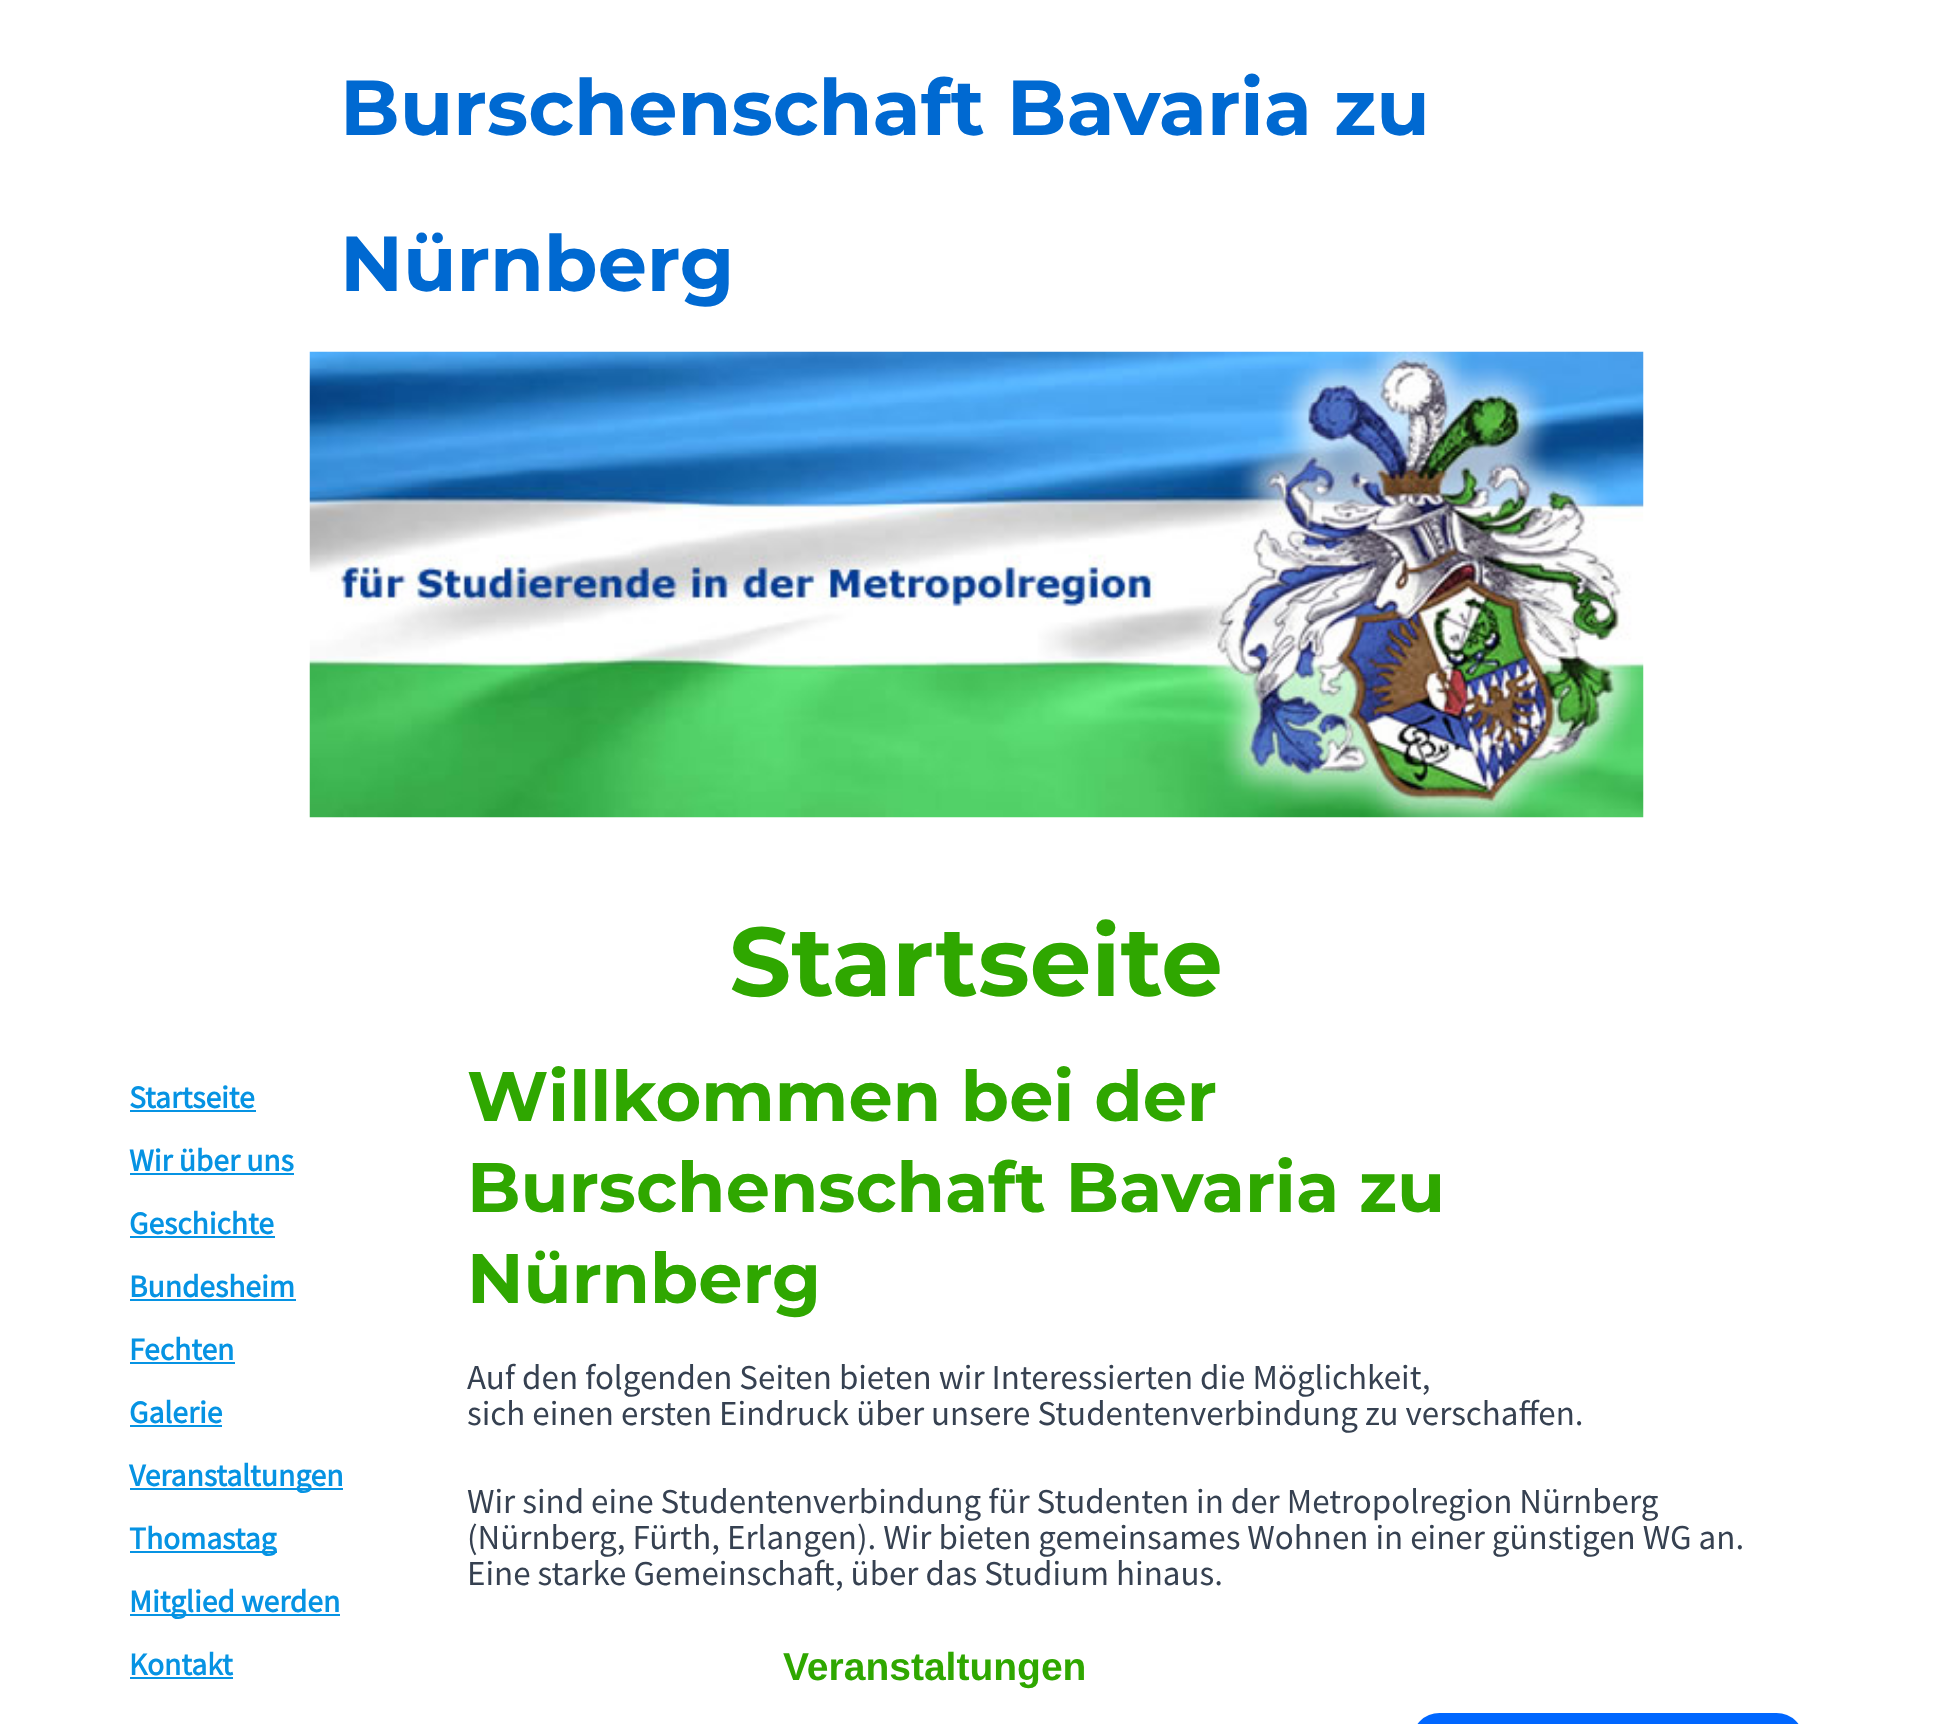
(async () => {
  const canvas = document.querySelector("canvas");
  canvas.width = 1951;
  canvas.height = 1724;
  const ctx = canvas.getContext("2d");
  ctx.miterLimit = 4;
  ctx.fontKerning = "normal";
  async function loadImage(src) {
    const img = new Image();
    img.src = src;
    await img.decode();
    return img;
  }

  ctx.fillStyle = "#ffffff";
  ctx.fillRect(0, 0, 1951, 1724);
  ctx.drawImage(await loadImage("img/1.png"), 309, 351, 1335, 467);
  for (const [x, y, w, h, color] of [
    [130, 1110, 126, 2, "#0693e3"],
    [130, 1173, 164, 2, "#0693e3"],
    [130, 1236, 145, 2, "#0693e3"],
    [130, 1299, 166, 2, "#0693e3"],
    [130, 1362, 105, 2, "#0693e3"],
    [130, 1425, 92, 2, "#0693e3"],
    [130, 1488, 213, 2, "#0693e3"],
    [130, 1551, 147, 2, "#0693e3"],
    [130, 1614, 210, 2, "#0693e3"],
    [130, 1677, 103, 2, "#0693e3"],
  ]) {
    ctx.fillStyle = color;
    ctx.fillRect(x, y, w, h);
  }
  ctx.fillStyle = "#0067ff";
  ctx.beginPath();
  ctx.roundRect(1412, 1713, 392, 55, 44);
  ctx.fill();
  ctx.font = "100 78px Montserrat";
  ctx.fillStyle = "#0069d1";
  ctx.fillText("Burschenschaft Bavaria zu", 340, 135);
  ctx.fillText("Nürnberg", 340, 291);
  ctx.font = "100 97.5px Montserrat";
  ctx.fillStyle = "#2fa700";
  ctx.fillText("Startseite", 729, 996);
  ctx.font = "bold 31.5px Source Sans Pro";
  ctx.fillStyle = "#0693e3";
  for (const [text, x, y] of [
    ["Startseite", 129, 1108],
    ["Wir über uns", 129, 1171],
    ["Geschichte", 129, 1234],
    ["Bundesheim", 129, 1297],
    ["Fechten", 129, 1360],
    ["Galerie", 129, 1423],
    ["Veranstaltungen", 129, 1486],
    ["Thomastag", 129, 1549],
    ["Mitglied werden", 129, 1612],
    ["Kontakt", 129, 1675],
  ]) {
    ctx.fillText(text, x, y);
  }
  ctx.font = "100 70px Montserrat";
  ctx.fillStyle = "#2fa700";
  for (const [text, x, y] of [
    ["Willkommen bei der", 467, 1121],
    ["Burschenschaft Bavaria zu", 467, 1212],
    ["Nürnberg", 467, 1303],
  ]) {
    ctx.fillText(text, x, y);
  }
  ctx.font = "35px Source Sans Pro";
  ctx.fillStyle = "#364151";
  for (const [text, x, y] of [
    ["Auf den folgenden Seiten bieten wir Interessierten die Möglichkeit,", 467, 1389],
    ["sich einen ersten Eindruck über unsere Studentenverbindung zu verschaffen.", 467, 1425],
    ["Wir sind eine Studentenverbindung für Studenten in der Metropolregion Nürnberg", 467, 1513],
    ["(Nürnberg, Fürth, Erlangen). Wir bieten gemeinsames Wohnen in einer günstigen WG an.", 467, 1549],
    ["Eine starke Gemeinschaft, über das Studium hinaus.", 467, 1585],
  ]) {
    ctx.fillText(text, x, y);
  }
  ctx.font = "bold 39px Liberation Sans";
  ctx.fillStyle = "#2fa700";
  ctx.fillText("Veranstaltungen", 783, 1680);
})();
